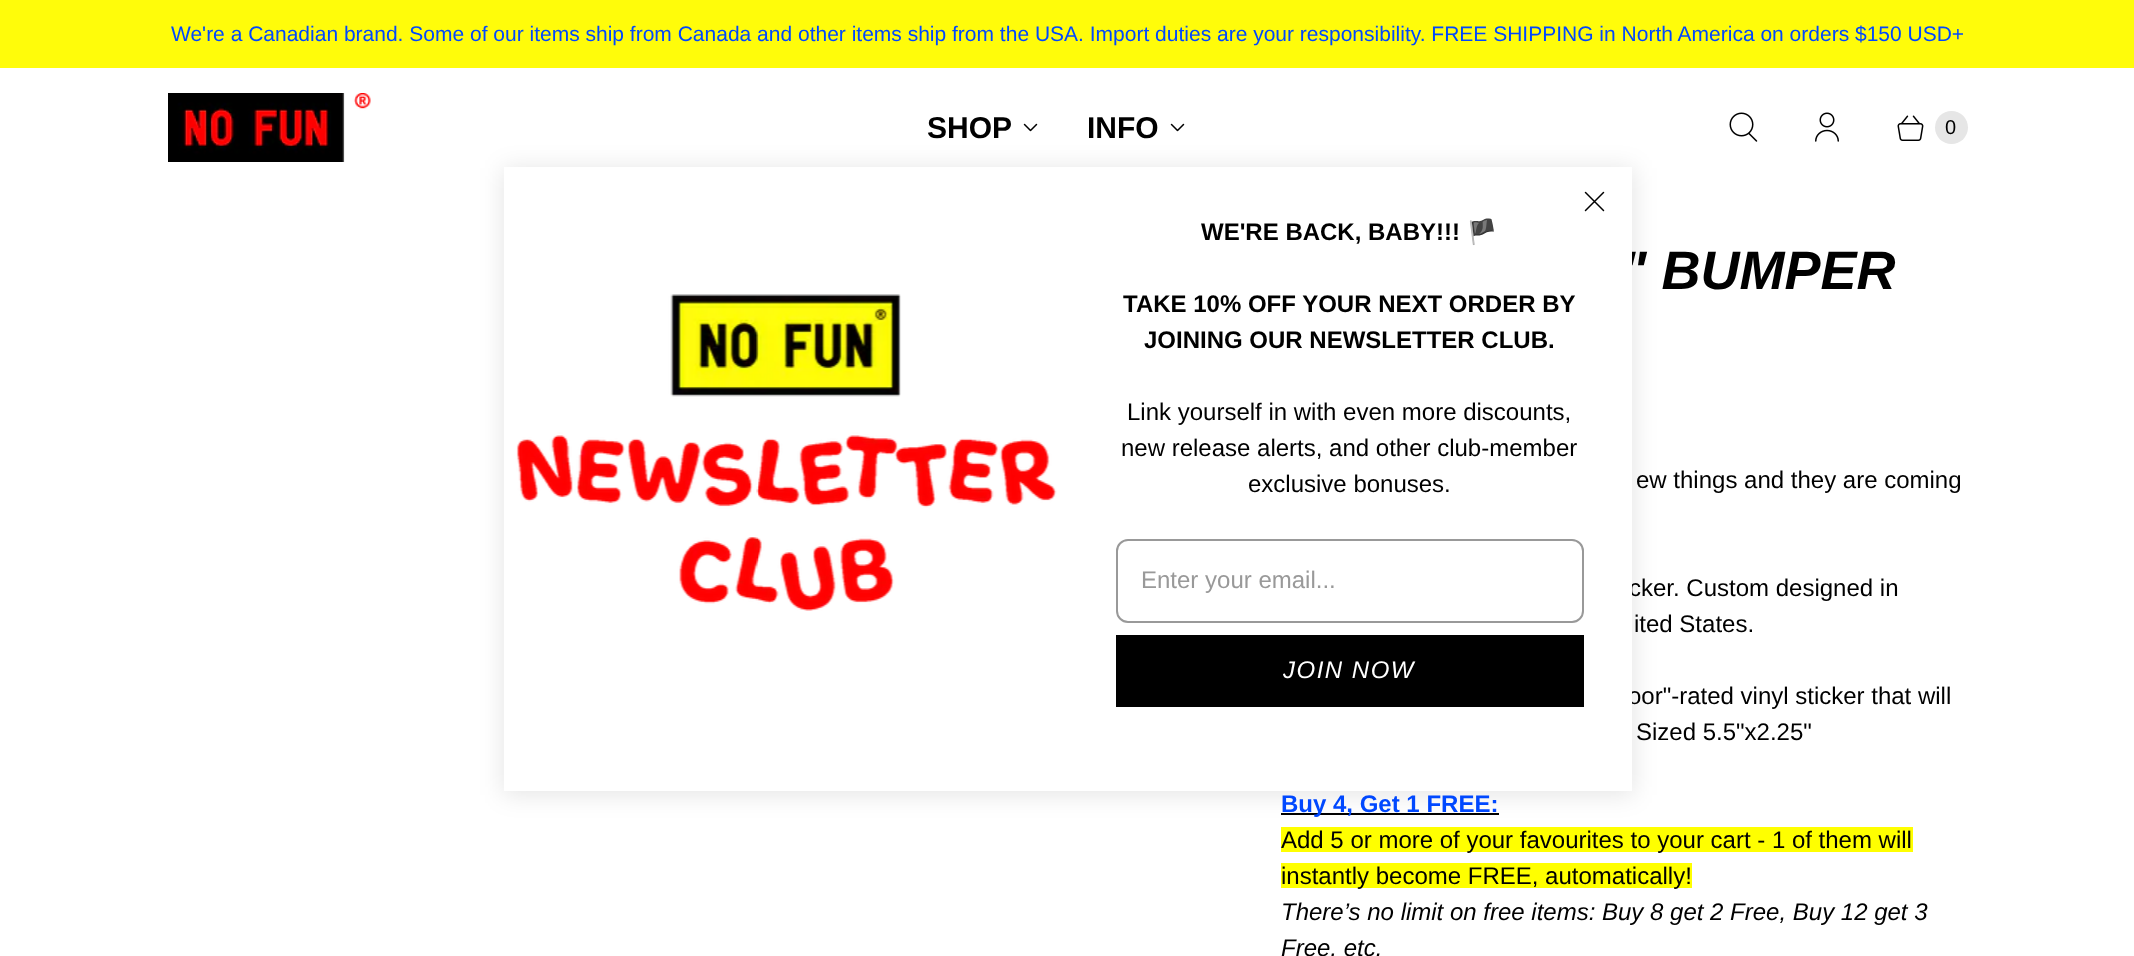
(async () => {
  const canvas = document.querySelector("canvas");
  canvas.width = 2134;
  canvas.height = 956;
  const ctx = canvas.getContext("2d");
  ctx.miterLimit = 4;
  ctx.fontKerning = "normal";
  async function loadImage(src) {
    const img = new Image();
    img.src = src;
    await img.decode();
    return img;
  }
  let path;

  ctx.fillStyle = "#ffffff";
  ctx.fillRect(0, 0, 2134, 956);
  ctx.fillStyle = "#fffc0a";
  ctx.fillRect(0, 0, 2134, 68);
  ctx.drawImage(await loadImage("img/1.png"), 168, 93, 203, 69);
  ctx.drawImage(await loadImage("img/2.png"), 1023, 123, 15, 9);
  ctx.drawImage(await loadImage("img/2.png"), 1170, 123, 15, 9);
  ctx.drawImage(await loadImage("img/3.png"), 1729, 112, 29, 30);
  ctx.drawImage(await loadImage("img/4.png"), 1815, 112, 24, 30);
  ctx.drawImage(await loadImage("img/5.png"), 1897, 115, 27, 26);
  ctx.fillStyle = "#e6e6e6";
  ctx.beginPath();
  ctx.arc(1951.5, 127.5, 16.5, 0, Math.PI * 2);
  ctx.fill();
  ctx.fillStyle = "#000000";
  ctx.fillRect(1281, 813, 218, 2);
  ctx.fillStyle = "#ffff00";
  ctx.fillRect(1281, 827, 632, 25);
  ctx.fillStyle = "rgba(0, 0, 0, 0.1)";
  ctx.filter = "blur(12px)";
  ctx.beginPath();
  ctx.rect(503, 168, 1131, 627);
  ctx.fill();
  ctx.filter = "none";
  ctx.fillStyle = "#ffff00";
  ctx.fillRect(1281, 863, 411, 25);
  ctx.font = "21px Liberation Sans";
  ctx.fillStyle = "#0048ff";
  ctx.fillText("We're a Canadian brand. Some of our items ship from Canada and other items ship from the USA. Import duties are your responsibility. FREE SHIPPING in North America on orders $150 USD+", 171, 41);
  ctx.font = "bold 30px Liberation Sans";
  ctx.fillStyle = "#000000";
  ctx.fillText("SHOP", 927, 138);
  ctx.fillText("INFO", 1087, 138);
  ctx.font = "20px Liberation Sans";
  ctx.fillText("0", 1945, 134);
  ctx.font = "italic bold 54px Liberation Sans";
  ctx.fillText("\" BUMPER", 1621, 289);
  ctx.font = "24px Liberation Sans";
  for (const [text, x, y] of [
    ["ew things and they are coming", 1636, 488],
    ["cker. Custom designed in", 1629, 596],
    ["ited States.", 1634, 632],
    ["oor\"-rated vinyl sticker that will", 1628, 704],
  ]) {
    ctx.fillText(text, x, y);
  }
  ctx.fillStyle = "#ffffff";
  ctx.fillRect(504, 167, 1128, 624);
  ctx.drawImage(await loadImage("img/6.png"), 516, 294, 541, 317);
  path = new Path2D("M1585.5 210.5L1603.5 192.5M1603.5 210.5L1585.5 192.5");
  ctx.strokeStyle = "#000000";
  ctx.lineWidth = 1.5;
  ctx.lineCap = "round";
  ctx.lineJoin = "round";
  ctx.stroke(path);
  ctx.fillStyle = "#000000";
  ctx.fillRect(1116, 635, 468, 72);
  ctx.letterSpacing = "1.5px";
  ctx.font = "italic 24px Liberation Sans";
  ctx.fillStyle = "#ffffff";
  ctx.fillText("JOIN NOW", 1283, 678);
  ctx.beginPath();
  ctx.roundRect(1117, 540, 466, 82, 11);
  ctx.strokeStyle = "#999999";
  ctx.lineWidth = 2;
  ctx.lineJoin = "miter";
  ctx.stroke();
  ctx.letterSpacing = "0px";
  ctx.font = "24px Liberation Sans";
  ctx.fillStyle = "#999999";
  ctx.fillText("Enter your email...", 1141, 588);
  ctx.fillStyle = "#000000";
  for (const [text, x, y] of [
    ["exclusive bonuses.", 1248, 492],
    ["new release alerts, and other club-member", 1121, 456],
    ["Link yourself in with even more discounts,", 1127, 420],
  ]) {
    ctx.fillText(text, x, y);
  }
  ctx.font = "bold 24px Liberation Sans";
  ctx.fillText("JOINING OUR NEWSLETTER CLUB.", 1144, 348);
  ctx.fillText("TAKE 10% OFF YOUR NEXT ORDER BY", 1123, 312);
  ctx.font = "bold 24px Noto Color Emoji";
  ctx.fillText("🏴", 1467, 240);
  ctx.font = "bold 24px Liberation Sans";
  ctx.fillText("WE'RE BACK, BABY!!!", 1201, 240);
  ctx.font = "24px Liberation Sans";
  ctx.fillText("Sized 5.5\"x2.25\"", 1636, 740);
  ctx.font = "bold 24px Liberation Sans";
  ctx.fillStyle = "#0048ff";
  ctx.fillText("Buy 4, Get 1 FREE:", 1281, 812);
  ctx.font = "24px Liberation Sans";
  ctx.fillStyle = "#000000";
  ctx.fillText("Add 5 or more of your favourites to your cart - 1 of them will", 1281, 848);
  ctx.fillText("instantly become FREE, automatically!", 1281, 884);
  ctx.font = "italic 24px Liberation Sans";
  ctx.fillText("There’s no limit on free items: Buy 8 get 2 Free, Buy 12 get 3", 1281, 920);
  ctx.fillText("Free, etc.", 1281, 956);
})();
